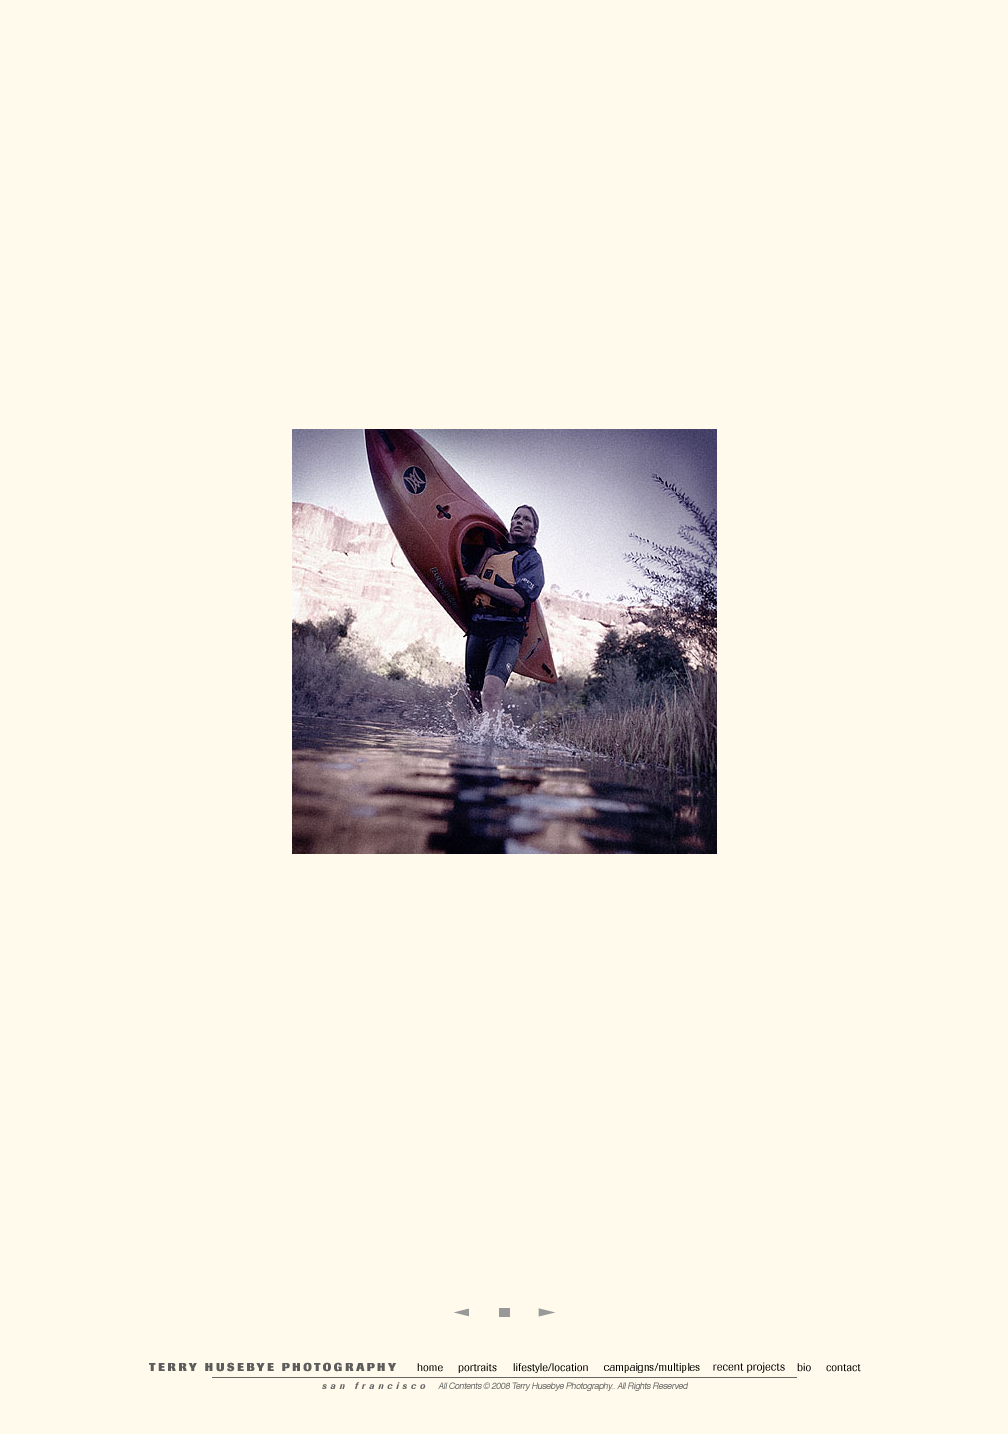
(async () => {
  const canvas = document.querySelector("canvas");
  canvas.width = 1008;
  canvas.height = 1434;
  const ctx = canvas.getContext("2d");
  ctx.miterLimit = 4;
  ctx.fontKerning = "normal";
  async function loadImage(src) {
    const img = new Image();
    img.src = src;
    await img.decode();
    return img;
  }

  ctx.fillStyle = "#fffaeb";
  ctx.fillRect(0, 0, 1008, 1434);
  ctx.drawImage(await loadImage("img/1.png"), 292, 429, 425, 425);
  ctx.drawImage(await loadImage("img/2.png"), 453, 1308, 16, 9);
  ctx.fillStyle = "#999999";
  ctx.fillRect(499, 1308, 11, 9);
  ctx.drawImage(await loadImage("img/3.png"), 538, 1308, 18, 9);
  ctx.drawImage(await loadImage("img/4.png"), 149, 1362, 247, 10);
  ctx.drawImage(await loadImage("img/5.png"), 417, 1363, 26, 9);
  ctx.drawImage(await loadImage("img/6.png"), 458, 1363, 39, 10);
  ctx.drawImage(await loadImage("img/7.png"), 513, 1363, 75, 10);
  ctx.drawImage(await loadImage("img/8.png"), 604, 1363, 96, 10);
  ctx.drawImage(await loadImage("img/9.png"), 713, 1362, 72, 11);
  ctx.drawImage(await loadImage("img/10.png"), 797, 1363, 14, 9);
  ctx.drawImage(await loadImage("img/11.png"), 826, 1364, 35, 8);
  ctx.drawImage(await loadImage("img/12.png"), 212, 1377, 585, 14);
})();
